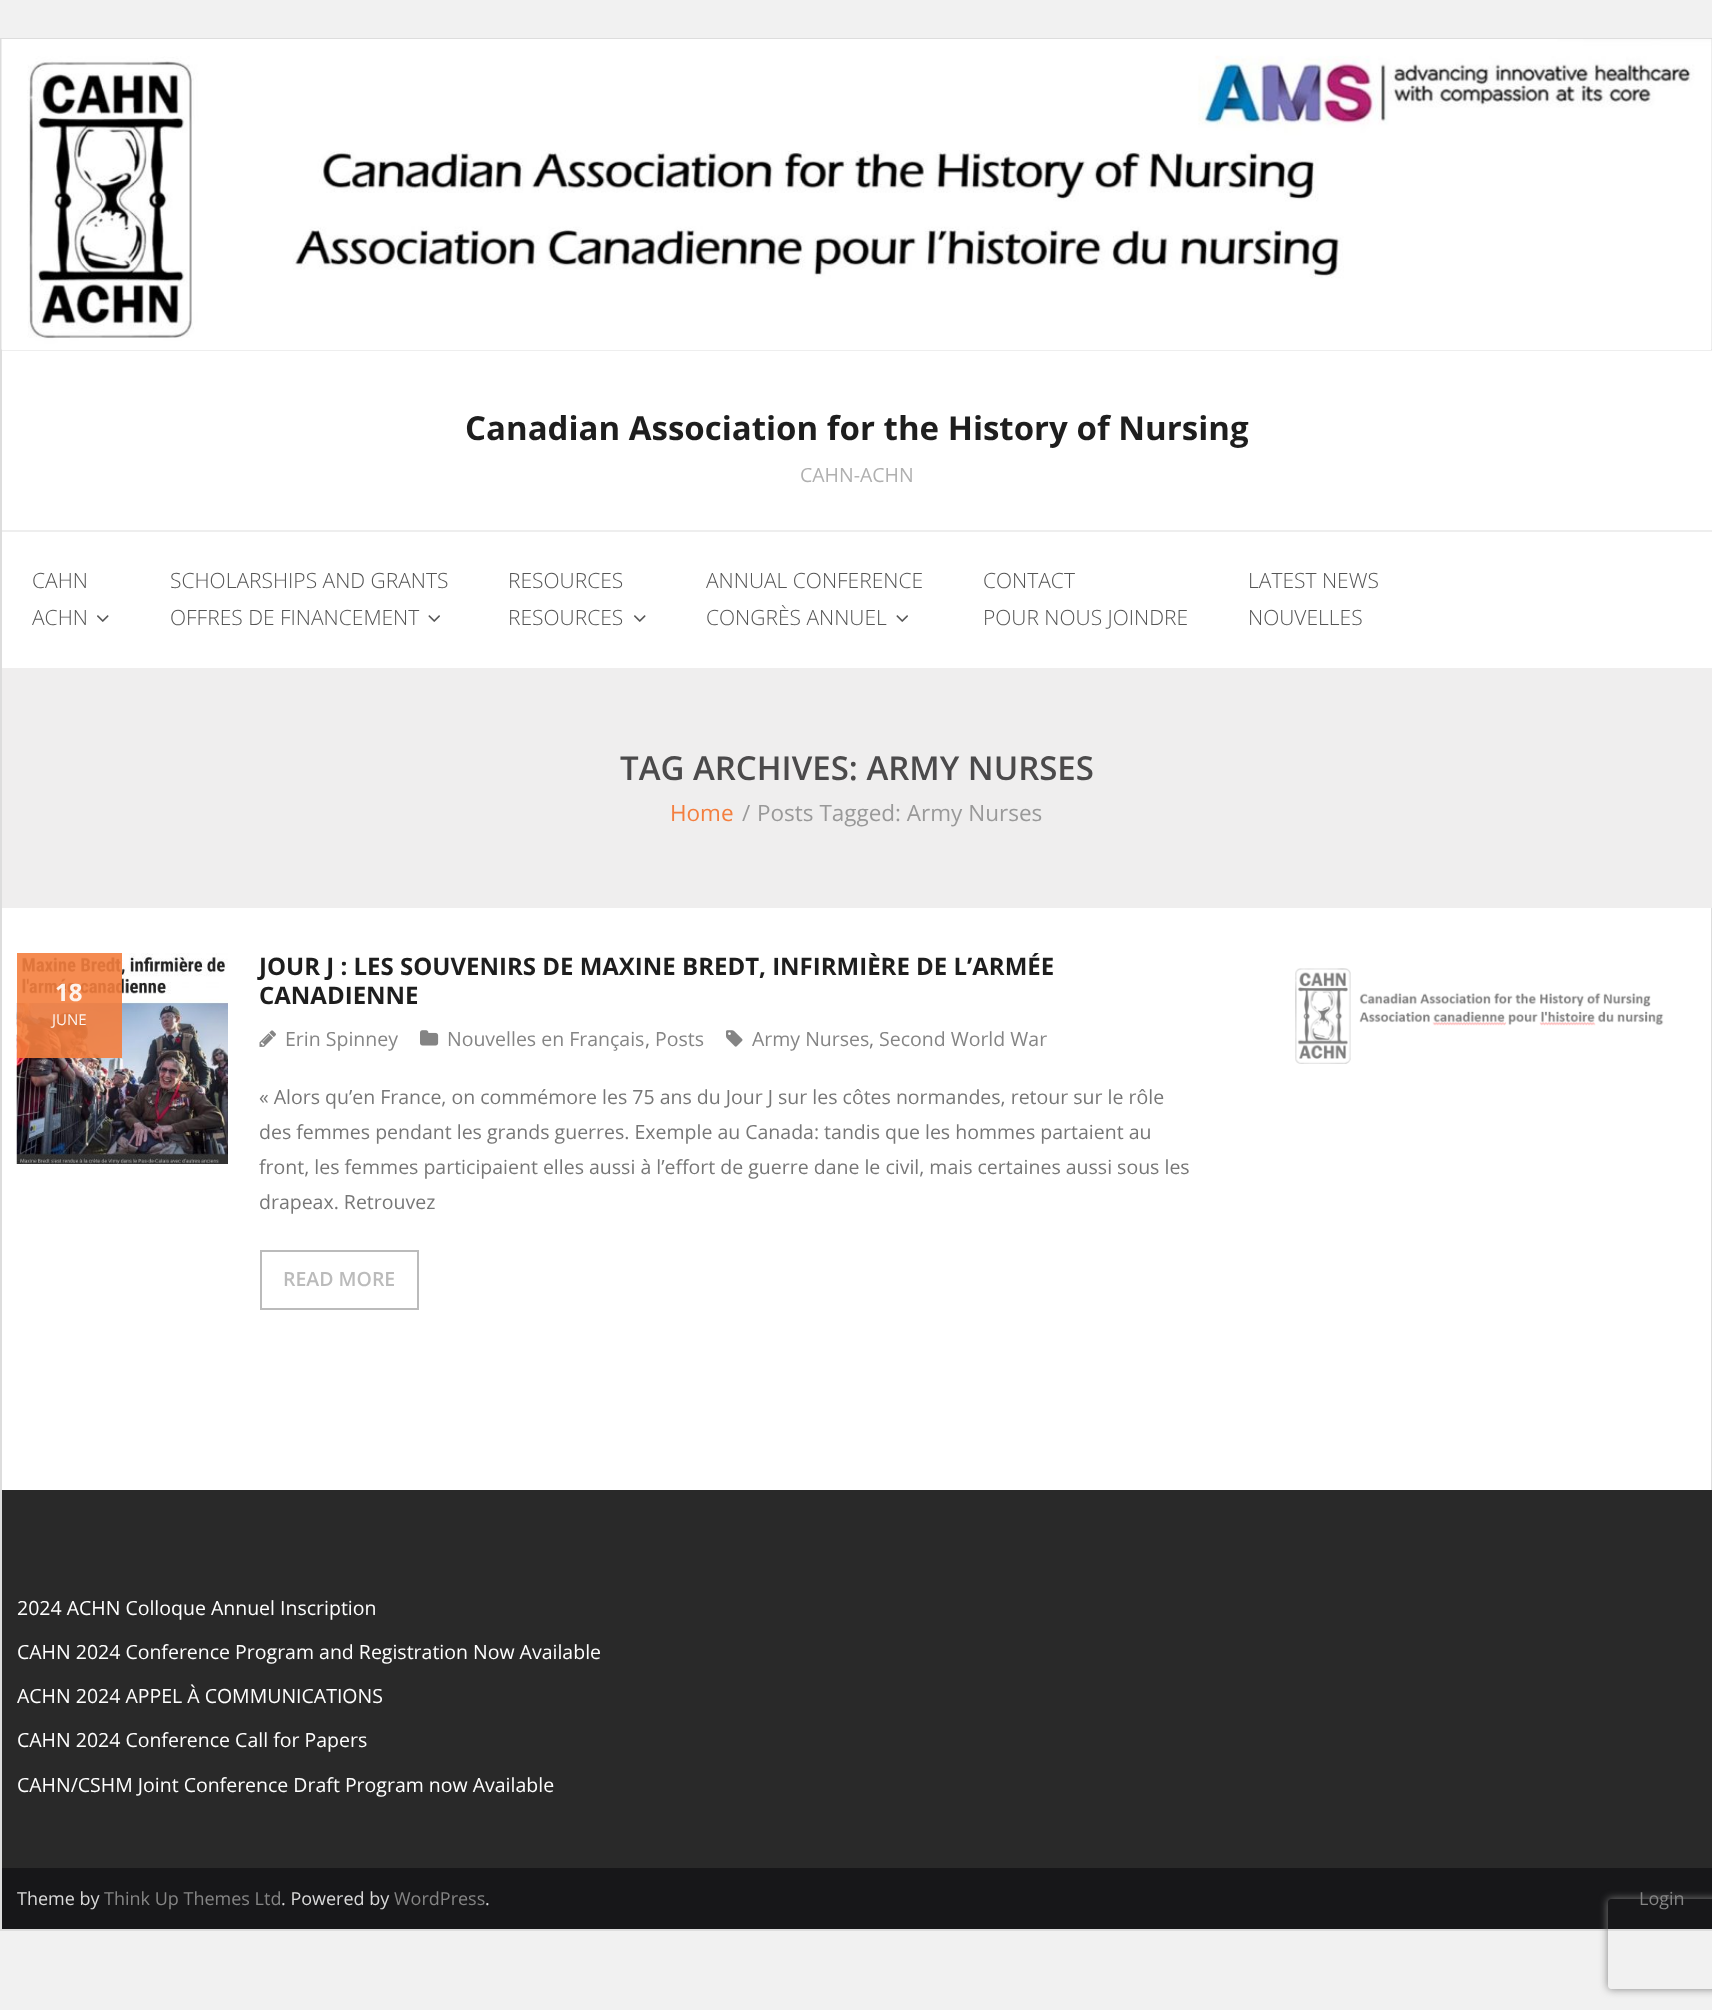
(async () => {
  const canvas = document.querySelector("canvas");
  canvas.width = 1712;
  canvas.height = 2010;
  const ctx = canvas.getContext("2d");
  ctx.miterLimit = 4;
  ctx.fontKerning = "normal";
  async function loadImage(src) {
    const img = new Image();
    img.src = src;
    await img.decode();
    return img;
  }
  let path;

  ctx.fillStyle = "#f1f1f1";
  ctx.fillRect(0, 0, 1712, 2010);
  ctx.fillStyle = "#ffffff";
  ctx.fillRect(2, 349, 1709, 1141);
  ctx.strokeStyle = "#dddddd";
  ctx.lineWidth = 2;
  ctx.strokeRect(1, 39, 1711, 1891);
  ctx.drawImage(await loadImage("img/1.png"), 1, 39, 1711, 311);
  for (const [x, y, w, h, color] of [
    [2, 350, 1710, 1, "#eeeeee"],
    [1711, 351, 1, 317, "#ffffff"],
    [2, 530, 1710, 2, "#eeeeee"],
  ]) {
    ctx.fillStyle = color;
    ctx.fillRect(x, y, w, h);
  }
  ctx.drawImage(await loadImage("img/2.png"), 97, 615, 12, 7);
  ctx.drawImage(await loadImage("img/3.png"), 428, 615, 12, 7);
  ctx.drawImage(await loadImage("img/2.png"), 634, 615, 12, 7);
  ctx.drawImage(await loadImage("img/3.png"), 896, 615, 12, 7);
  ctx.fillStyle = "#efeeee";
  ctx.fillRect(2, 668, 1710, 240);
  ctx.drawImage(await loadImage("img/4.png"), 16, 953, 212, 211);
  ctx.fillStyle = "rgba(244, 126, 62, 0.9)";
  ctx.fillRect(17, 953, 105, 105);
  ctx.drawImage(await loadImage("img/5.png"), 259, 1030, 17, 17);
  ctx.drawImage(await loadImage("img/6.png"), 420, 1030, 19, 16);
  ctx.drawImage(await loadImage("img/7.png"), 726, 1030, 17, 17);
  ctx.strokeStyle = "#bbbbbb";
  ctx.strokeRect(261, 1251, 157, 58);
  ctx.drawImage(await loadImage("img/8.png"), 1295, 968, 369, 96);
  ctx.fillStyle = "#292929";
  ctx.fillRect(2, 1490, 1710, 378);
  ctx.fillStyle = "#171719";
  ctx.fillRect(2, 1868, 1710, 61);
  ctx.save();
  path = new Path2D("M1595 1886H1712V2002H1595ZM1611 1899H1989C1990.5 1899 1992 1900.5 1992 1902V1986C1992 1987.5 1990.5 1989 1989 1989H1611C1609.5 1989 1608 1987.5 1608 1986V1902C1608 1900.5 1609.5 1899 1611 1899Z");
  ctx.clip(path, "evenodd");
  ctx.fillStyle = "#808080";
  ctx.filter = "blur(4px)";
  ctx.beginPath();
  ctx.roundRect(1608, 1899, 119, 90, 3);
  ctx.fill();
  ctx.filter = "none";
  ctx.restore();
  ctx.font = "bold 33px Open Sans";
  ctx.fillStyle = "#1e1e1e";
  ctx.fillText("Canadian Association for the History of Nursing", 465, 440);
  ctx.font = "19.5px Open Sans";
  ctx.fillStyle = "#b0b0b0";
  ctx.fillText("CAHN-ACHN", 800, 482);
  ctx.font = "300 21px Open Sans";
  ctx.fillStyle = "#555555";
  for (const [text, x, y] of [
    ["CAHN", 32, 588],
    ["ACHN", 32, 625],
    ["SCHOLARSHIPS AND GRANTS", 170, 588],
    ["OFFRES DE FINANCEMENT", 170, 625],
    ["RESOURCES", 508, 588],
    ["RESOURCES", 508, 625],
    ["ANNUAL CONFERENCE", 706, 588],
    ["CONGRÈS ANNUEL", 706, 625],
    ["CONTACT", 983, 588],
    ["POUR NOUS JOINDRE", 983, 625],
    ["LATEST NEWS", 1248, 588],
    ["NOUVELLES", 1248, 625],
  ]) {
    ctx.fillText(text, x, y);
  }
  ctx.font = "600 33px Open Sans";
  ctx.fillStyle = "#4b4a4b";
  ctx.fillText("TAG ARCHIVES: ARMY NURSES", 620, 780);
  ctx.font = "22.5px Open Sans";
  ctx.fillStyle = "#f47e3e";
  ctx.fillText("Home", 670, 821);
  ctx.fillStyle = "#999999";
  ctx.fillText("/", 742, 821);
  ctx.fillText("Posts Tagged: Army Nurses", 757, 821);
  ctx.save();
  ctx.beginPath();
  ctx.rect(17, 953, 1182, 492);
  ctx.clip();
  ctx.font = "bold 24px Open Sans";
  ctx.fillStyle = "#1e1e1e";
  ctx.fillText("JOUR J : LES SOUVENIRS DE MAXINE BREDT, INFIRMIÈRE DE L’ARMÉE", 259, 975);
  ctx.restore();
  ctx.font = "bold 24px Open Sans";
  ctx.fillStyle = "#1e1e1e";
  ctx.fillText("CANADIENNE", 259, 1004);
  ctx.fillStyle = "#fdf3ed";
  ctx.fillText("18", 55, 1001);
  ctx.font = "15px Open Sans";
  ctx.fillText("JUNE", 52, 1025);
  ctx.font = "19.5px Open Sans";
  ctx.fillStyle = "#858585";
  ctx.fillText("Erin Spinney", 285, 1046);
  ctx.fillText("Nouvelles en Français", 447, 1046);
  ctx.fillStyle = "#777777";
  ctx.fillText(",", 645, 1046);
  ctx.fillStyle = "#858585";
  ctx.fillText("Posts", 655, 1046);
  ctx.fillText("Army Nurses", 752, 1046);
  ctx.fillStyle = "#777777";
  ctx.fillText(",", 869, 1046);
  ctx.fillStyle = "#858585";
  ctx.fillText("Second World War", 879, 1046);
  ctx.fillStyle = "#777777";
  for (const [text, x, y] of [
    ["« Alors qu’en France, on commémore les 75 ans du Jour J sur les côtes normandes, retour sur le rôle", 259, 1104],
    ["des femmes pendant les grands guerres. Exemple au Canada: tandis que les hommes partaient au", 259, 1139],
    ["front, les femmes participaient elles aussi à l’effort de guerre dane le civil, mais certaines aussi sous les", 259, 1174],
    ["drapeax. Retrouvez", 259, 1209],
  ]) {
    ctx.fillText(text, x, y);
  }
  ctx.font = "600 19.5px Open Sans";
  ctx.fillStyle = "#bbbbbb";
  ctx.fillText("READ MORE", 283, 1286);
  ctx.font = "19.5px Open Sans";
  ctx.fillStyle = "#ffffff";
  for (const [text, x, y] of [
    ["2024 ACHN Colloque Annuel Inscription", 17, 1615],
    ["CAHN 2024 Conference Program and Registration Now Available", 17, 1659],
    ["ACHN 2024 APPEL À COMMUNICATIONS", 17, 1703],
    ["CAHN 2024 Conference Call for Papers", 17, 1747],
    ["CAHN/CSHM Joint Conference Draft Program now Available", 17, 1792],
  ]) {
    ctx.fillText(text, x, y);
  }
  ctx.font = "18px Open Sans";
  ctx.fillStyle = "#dadada";
  ctx.fillText("Theme by", 17, 1905);
  ctx.fillStyle = "#858585";
  ctx.fillText("Think Up Themes Ltd", 104, 1905);
  ctx.fillStyle = "#dadada";
  ctx.fillText(". Powered by", 281, 1905);
  ctx.fillStyle = "#858585";
  ctx.fillText("WordPress", 394, 1905);
  ctx.fillStyle = "#dadada";
  ctx.fillText(".", 485, 1905);
  ctx.fillStyle = "#858585";
  ctx.fillText("Login", 1639, 1905);
})();
